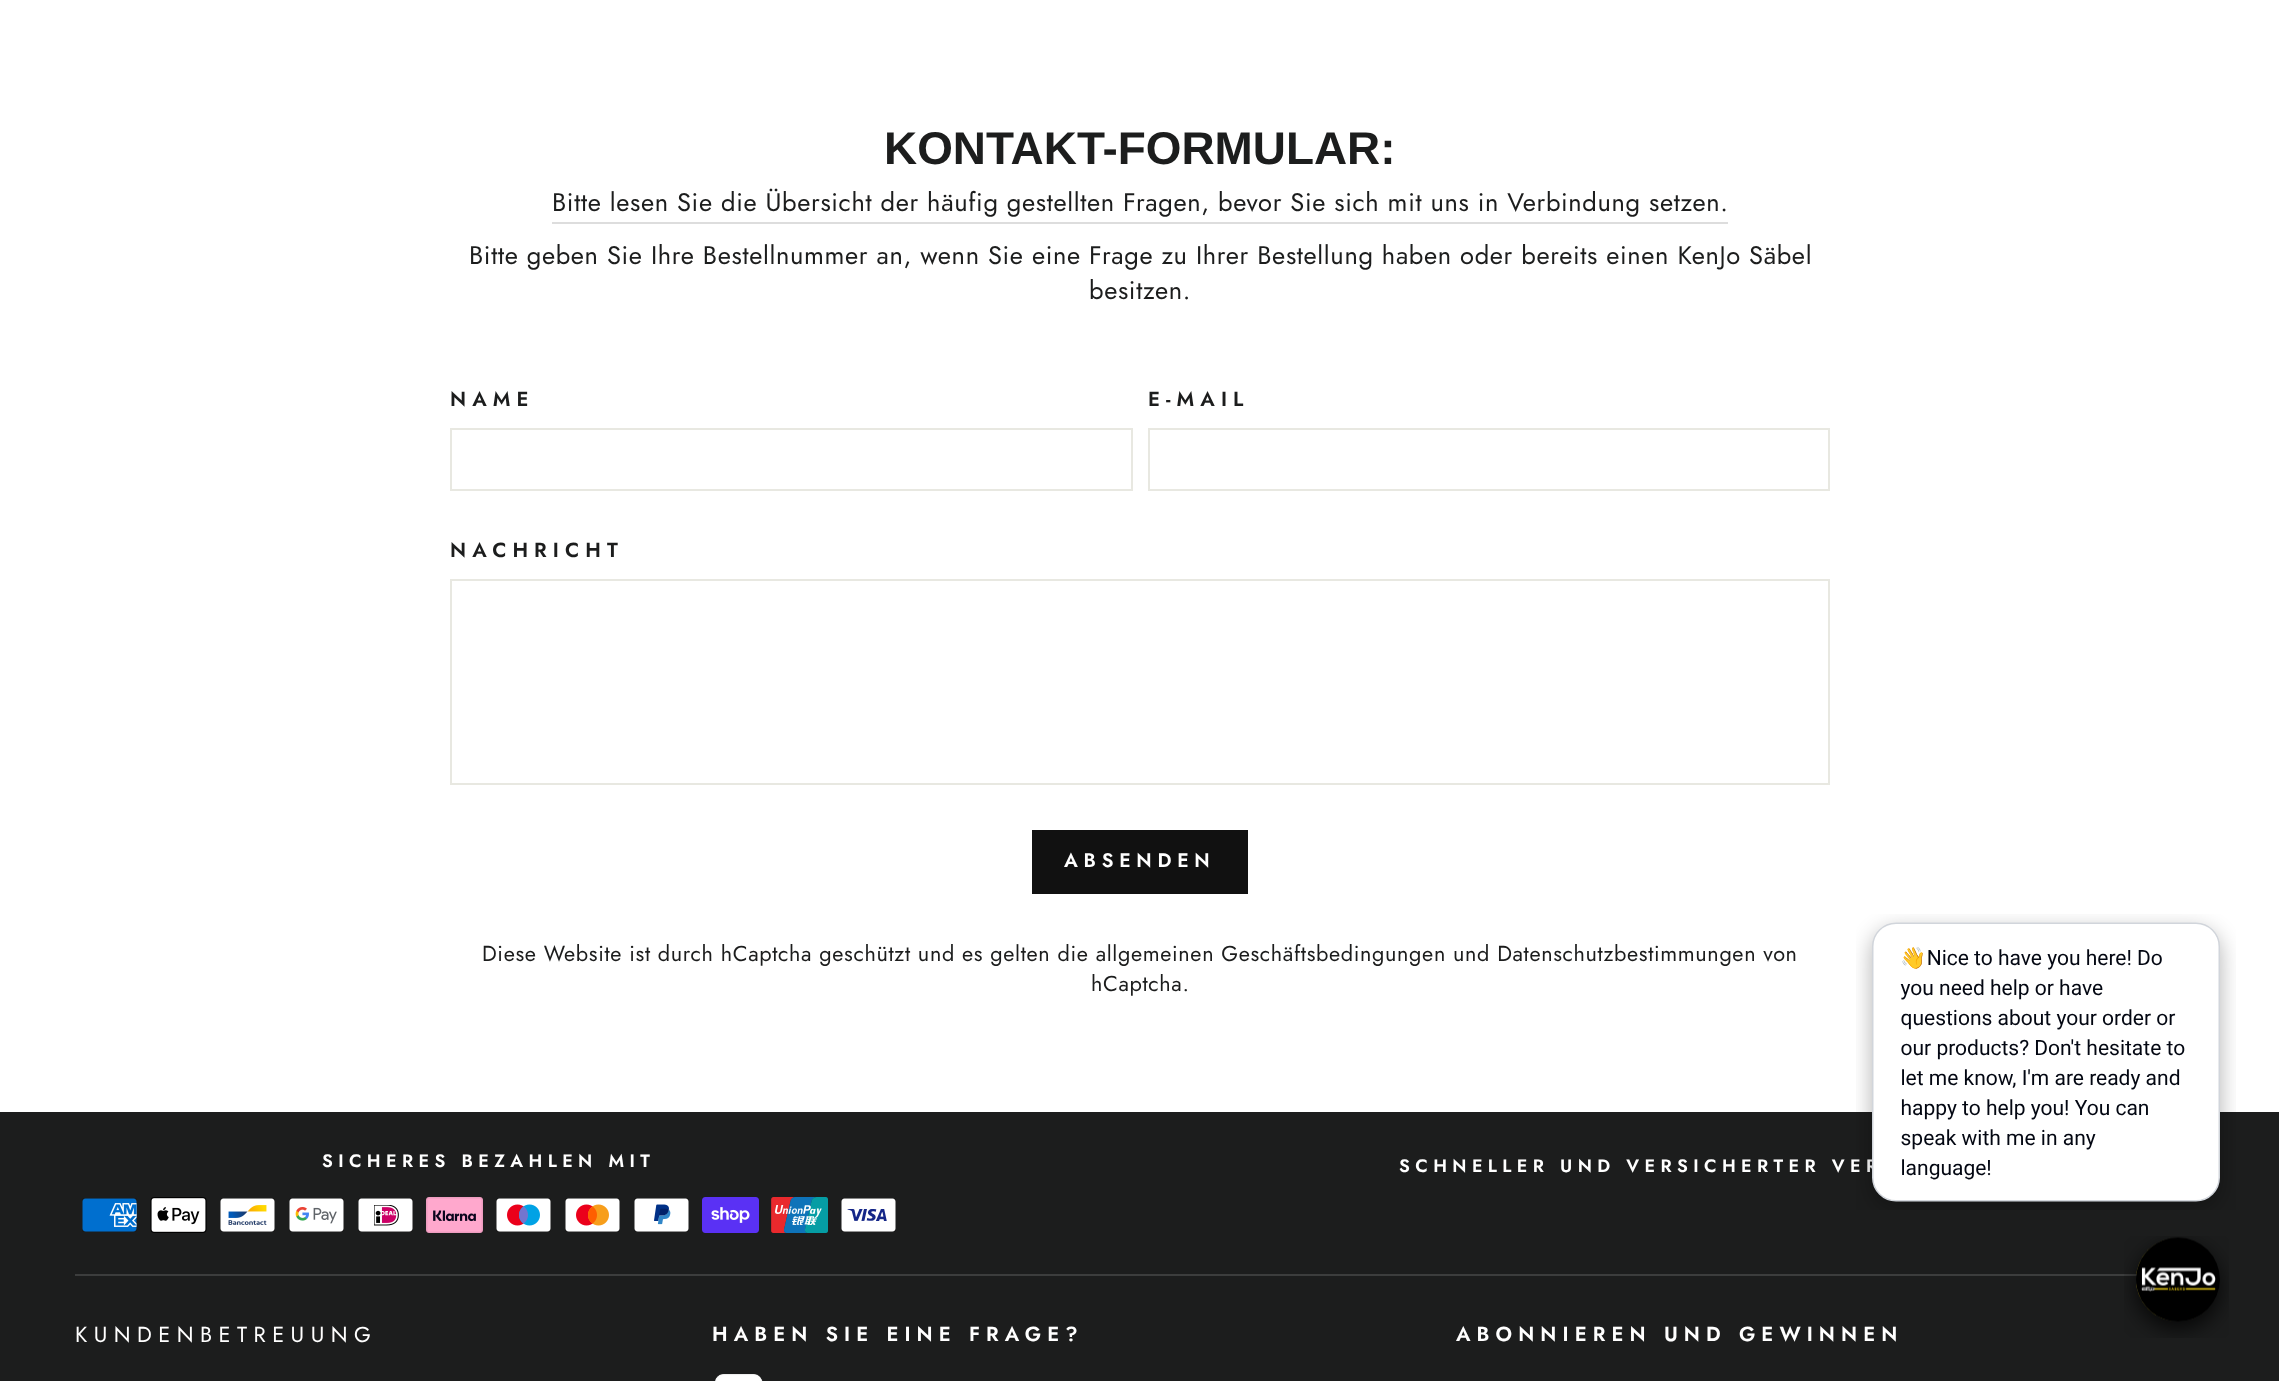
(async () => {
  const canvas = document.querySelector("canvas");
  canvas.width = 2279;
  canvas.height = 1381;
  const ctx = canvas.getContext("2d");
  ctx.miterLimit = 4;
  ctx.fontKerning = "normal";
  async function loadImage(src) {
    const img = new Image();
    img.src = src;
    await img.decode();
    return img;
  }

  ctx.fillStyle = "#ffffff";
  ctx.fillRect(0, 0, 2279, 1381);
  ctx.fillStyle = "#dddddd";
  ctx.fillRect(552, 222, 1176, 2);
  ctx.strokeStyle = "#e8e8e1";
  ctx.lineWidth = 2;
  ctx.strokeRect(451, 429, 681, 61);
  ctx.strokeRect(1149, 429, 680, 61);
  ctx.strokeRect(451, 580, 1378, 204);
  for (const [x, y, w, h, color] of [
    [1032, 830, 216, 64, "#111111"],
    [0, 1112, 2279, 269, "#1c1d1d"],
    [75, 1274, 2062, 2, "#3c3d3d"],
  ]) {
    ctx.fillStyle = color;
    ctx.fillRect(x, y, w, h);
  }
  ctx.drawImage(await loadImage("img/1.png"), 82, 1198, 55, 34);
  ctx.drawImage(await loadImage("img/2.png"), 150, 1197, 57, 36);
  ctx.drawImage(await loadImage("img/3.png"), 220, 1198, 55, 34);
  ctx.drawImage(await loadImage("img/4.png"), 289, 1198, 55, 34);
  ctx.drawImage(await loadImage("img/5.png"), 358, 1198, 55, 34);
  ctx.drawImage(await loadImage("img/6.png"), 426, 1197, 57, 36);
  ctx.drawImage(await loadImage("img/7.png"), 496, 1198, 55, 34);
  ctx.drawImage(await loadImage("img/8.png"), 565, 1198, 55, 34);
  ctx.drawImage(await loadImage("img/9.png"), 634, 1198, 55, 34);
  ctx.drawImage(await loadImage("img/10.png"), 702, 1197, 57, 36);
  ctx.drawImage(await loadImage("img/11.png"), 771, 1197, 57, 36);
  ctx.drawImage(await loadImage("img/12.png"), 841, 1198, 55, 34);
  ctx.drawImage(await loadImage("img/13.png"), 715, 1374, 48, 7);
  ctx.drawImage(await loadImage("img/15.png"), 2124, 1236, 105, 102);
  ctx.font = "bold 45.9px Liberation Sans";
  ctx.fillStyle = "#1c1d1d";
  ctx.fillText("KONTAKT-FORMULAR:", 884, 164);
  ctx.letterSpacing = "0.64px";
  ctx.font = "25.5px Jost";
  for (const [text, x, y] of [
    ["Bitte lesen Sie die Übersicht der häufig gestellten Fragen, bevor Sie sich mit uns in Verbindung setzen.", 552, 211],
    ["Bitte geben Sie Ihre Bestellnummer an, wenn Sie eine Frage zu Ihrer Bestellung haben oder bereits einen KenJo Säbel", 469, 264],
    ["besitzen.", 1089, 299],
  ]) {
    ctx.fillText(text, x, y);
  }
  ctx.letterSpacing = "6.1px";
  ctx.font = "600 20.4px Jost";
  for (const [text, x, y] of [
    ["NAME", 450, 406],
    ["E-MAIL", 1148, 406],
    ["NACHRICHT", 450, 557],
  ]) {
    ctx.fillText(text, x, y);
  }
  ctx.letterSpacing = "5.75px";
  ctx.font = "600 19.5px Jost";
  ctx.fillStyle = "#ffffff";
  ctx.fillText("ABSENDEN", 1064, 867);
  ctx.letterSpacing = "0.64px";
  ctx.font = "21.67px Jost";
  ctx.fillStyle = "#1c1d1d";
  ctx.fillText("Diese Website ist durch hCaptcha geschützt und es gelten die allgemeinen Geschäftsbedingungen und Datenschutzbestimmungen von", 482, 961);
  ctx.fillText("hCaptcha.", 1091, 991);
  ctx.letterSpacing = "5.4px";
  ctx.font = "600 18px Jost";
  ctx.fillStyle = "#ffffff";
  ctx.fillText("SICHERES BEZAHLEN MIT", 322, 1167);
  ctx.fillText("SCHNELLER UND VERSICHERTER VER", 1399, 1172);
  ctx.letterSpacing = "6.5px";
  ctx.font = "21.67px Jost";
  ctx.fillText("KUNDENBETREUUNG", 75, 1342);
  ctx.letterSpacing = "6.1px";
  ctx.font = "600 20.4px Jost";
  ctx.fillText("HABEN SIE EINE FRAGE?", 712, 1341);
  ctx.fillText("ABONNIEREN UND GEWINNEN", 1456, 1341);
  ctx.drawImage(await loadImage("img/14.png"), 1856, 914, 380, 296);
})();
